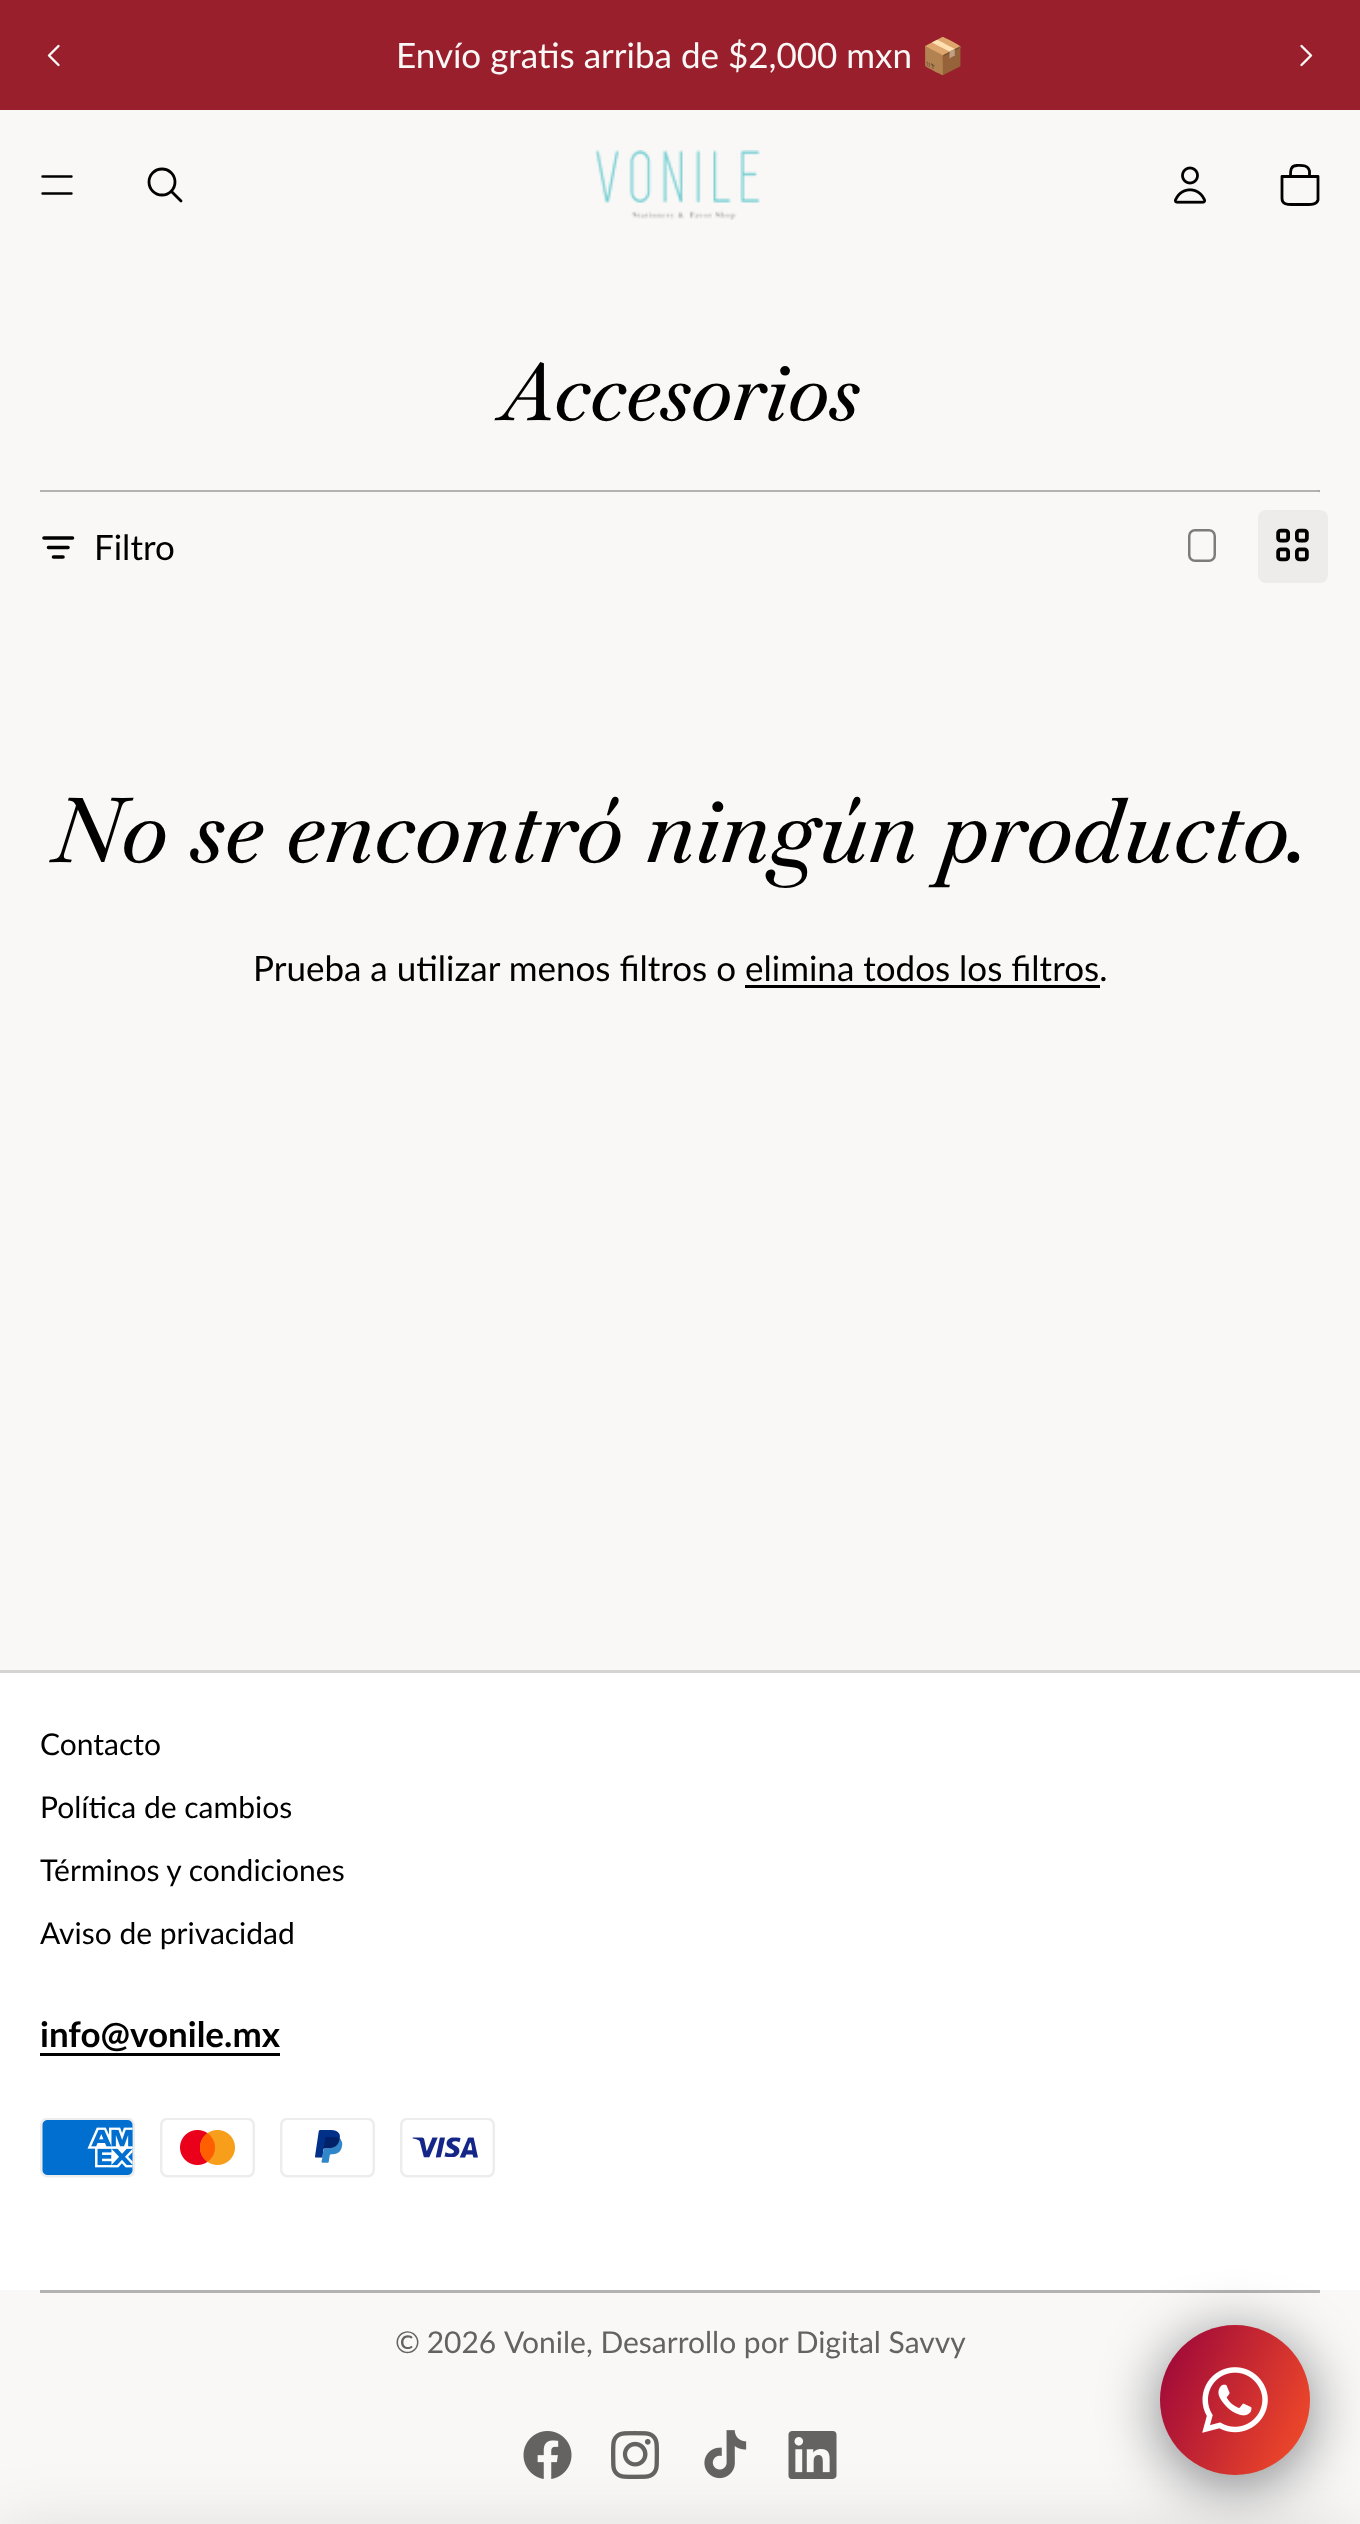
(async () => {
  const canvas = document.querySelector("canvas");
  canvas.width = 1360;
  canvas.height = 2524;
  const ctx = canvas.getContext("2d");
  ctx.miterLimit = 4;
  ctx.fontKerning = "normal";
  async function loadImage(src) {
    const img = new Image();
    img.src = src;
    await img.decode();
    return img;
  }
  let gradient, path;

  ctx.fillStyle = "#f9f8f6";
  ctx.fillRect(0, 0, 1360, 2524);
  ctx.fillStyle = "#991f2d";
  ctx.fillRect(0, 0, 1360, 110);
  path = new Path2D("M58.5 46L49 55.5L58.5 65");
  ctx.strokeStyle = "#f9f8f6";
  ctx.lineWidth = 2.4;
  ctx.lineCap = "round";
  ctx.lineJoin = "round";
  ctx.stroke(path);
  path = new Path2D("M1301.5 46L1311 55.5L1301.5 65");
  ctx.stroke(path);
  path = new Path2D("M42.5 176.5H71.5M42.5 193.5H71.5");
  ctx.strokeStyle = "#000000";
  ctx.lineJoin = "miter";
  ctx.stroke(path);
  ctx.beginPath();
  ctx.arc(162, 182, 13, 0, Math.PI * 2);
  ctx.lineWidth = 2.8;
  ctx.stroke();
  path = new Path2D("M172 192L181 201");
  ctx.lineJoin = "round";
  ctx.stroke(path);
  ctx.drawImage(await loadImage("img/1.png"), 595, 150, 165, 70);
  ctx.drawImage(await loadImage("img/2.png"), 1173, 166, 34, 38);
  path = new Path2D("M1282 176.5H1318V200C1316.5 204.5 1312 204.5 1308 204.5H1292C1287.5 204.5 1282 204.5 1282 198.5ZM1296.5 165.5C1301.5 165.5 1308 164.5 1309.5 171V176.5H1290.5C1290.5 171.5 1290 165.5 1297 165.5");
  ctx.stroke(path);
  ctx.fillStyle = "#b3b3b1";
  path = new Path2D("M1320 490V492.5L1317.5 490Z");
  ctx.fill(path);
  ctx.fillStyle = "rgba(0, 0, 0, 0.28)";
  path = new Path2D("M1320 492H40V490H1318Z");
  ctx.fill(path);
  path = new Path2D("M72.5 538H44M68 547.5H48.5M53.5 557H63");
  ctx.lineWidth = 3.6;
  ctx.lineJoin = "miter";
  ctx.stroke(path);
  ctx.beginPath();
  ctx.roundRect(1189.25, 530.25, 25.5, 30.5, 5.75);
  ctx.strokeStyle = "#7d7c7b";
  ctx.lineWidth = 2.5;
  ctx.stroke();
  ctx.fillStyle = "#edecea";
  ctx.beginPath();
  ctx.roundRect(1258, 510, 70, 73, 8);
  ctx.fill();
  ctx.drawImage(await loadImage("img/3.png"), 1276, 528, 33, 34);
  for (const [x, y, w, h, color] of [
    [745, 985, 355, 3, "#000000"],
    [0, 1670, 1360, 3, "#d6d4d3"],
    [0, 1673, 1360, 617, "#ffffff"],
    [40, 2053, 240, 3, "#000000"],
  ]) {
    ctx.fillStyle = color;
    ctx.fillRect(x, y, w, h);
  }
  ctx.drawImage(await loadImage("img/4.png"), 40, 2118, 95, 60);
  ctx.drawImage(await loadImage("img/5.png"), 160, 2118, 95, 60);
  ctx.drawImage(await loadImage("img/6.png"), 280, 2118, 95, 60);
  ctx.drawImage(await loadImage("img/7.png"), 400, 2118, 95, 60);
  ctx.fillStyle = "#b3b3b1";
  ctx.fillRect(40, 2290, 1280, 3);
  ctx.drawImage(await loadImage("img/8.png"), 523, 2431, 49, 48);
  ctx.drawImage(await loadImage("img/9.png"), 611, 2431, 48, 48);
  ctx.drawImage(await loadImage("img/10.png"), 704, 2430, 43, 49);
  ctx.drawImage(await loadImage("img/11.png"), 788, 2431, 49, 48);
  ctx.fillStyle = "rgba(2, 6, 16, 0.5)";
  ctx.filter = "blur(30px)";
  ctx.beginPath();
  ctx.roundRect(1160, 2335, 150, 150, 75);
  ctx.fill();
  ctx.filter = "none";
  ctx.fillStyle = "rgba(0, 0, 0, 0.15)";
  ctx.filter = "blur(37.5px)";
  ctx.beginPath();
  ctx.rect(0, 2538, 1360, 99);
  ctx.fill();
  ctx.filter = "none";
  gradient = ctx.createLinearGradient(1145, 2358, 1325, 2442);
  gradient.addColorStop(0, "#98033a");
  gradient.addColorStop(1, "#f74f28");
  ctx.fillStyle = gradient;
  ctx.beginPath();
  ctx.arc(1235, 2400, 75, 0, Math.PI * 2);
  ctx.fill();
  ctx.drawImage(await loadImage("img/12.png"), 1202, 2367, 66, 66);
  ctx.font = "35px Lato";
  ctx.fillStyle = "#f9f8f6";
  ctx.fillText("Envío gratis arriba de $2,000 mxn", 396, 68);
  ctx.font = "35px Noto Color Emoji";
  ctx.fillText("📦", 921, 68);
  ctx.font = "italic 500 80px Baskervville";
  ctx.fillStyle = "#000000";
  ctx.fillText("Accesorios", 500, 420);
  ctx.font = "35px Lato";
  ctx.fillText("Filtro", 94, 560);
  ctx.font = "italic 500 90px Baskervville";
  ctx.fillText("No se encontró ningún producto.", 51, 862);
  ctx.font = "35px Lato";
  ctx.fillText("Prueba a utilizar menos filtros o elimina todos los filtros.", 253, 981);
  ctx.font = "30px Lato";
  for (const [text, x, y] of [
    ["Contacto", 40, 1755],
    ["Política de cambios", 40, 1818],
    ["Términos y condiciones", 40, 1881],
    ["Aviso de privacidad", 40, 1944],
  ]) {
    ctx.fillText(text, x, y);
  }
  ctx.font = "bold 35px Lato";
  ctx.fillText("info@vonile.mx", 40, 2047);
  ctx.wordSpacing = "-1px";
  ctx.font = "30px Lato";
  ctx.fillStyle = "#646362";
  ctx.fillText("© 2026", 395, 2353);
  ctx.wordSpacing = "0px";
  ctx.fillText("Vonile, Desarrollo por Digital Savvy", 504, 2353);
})();
